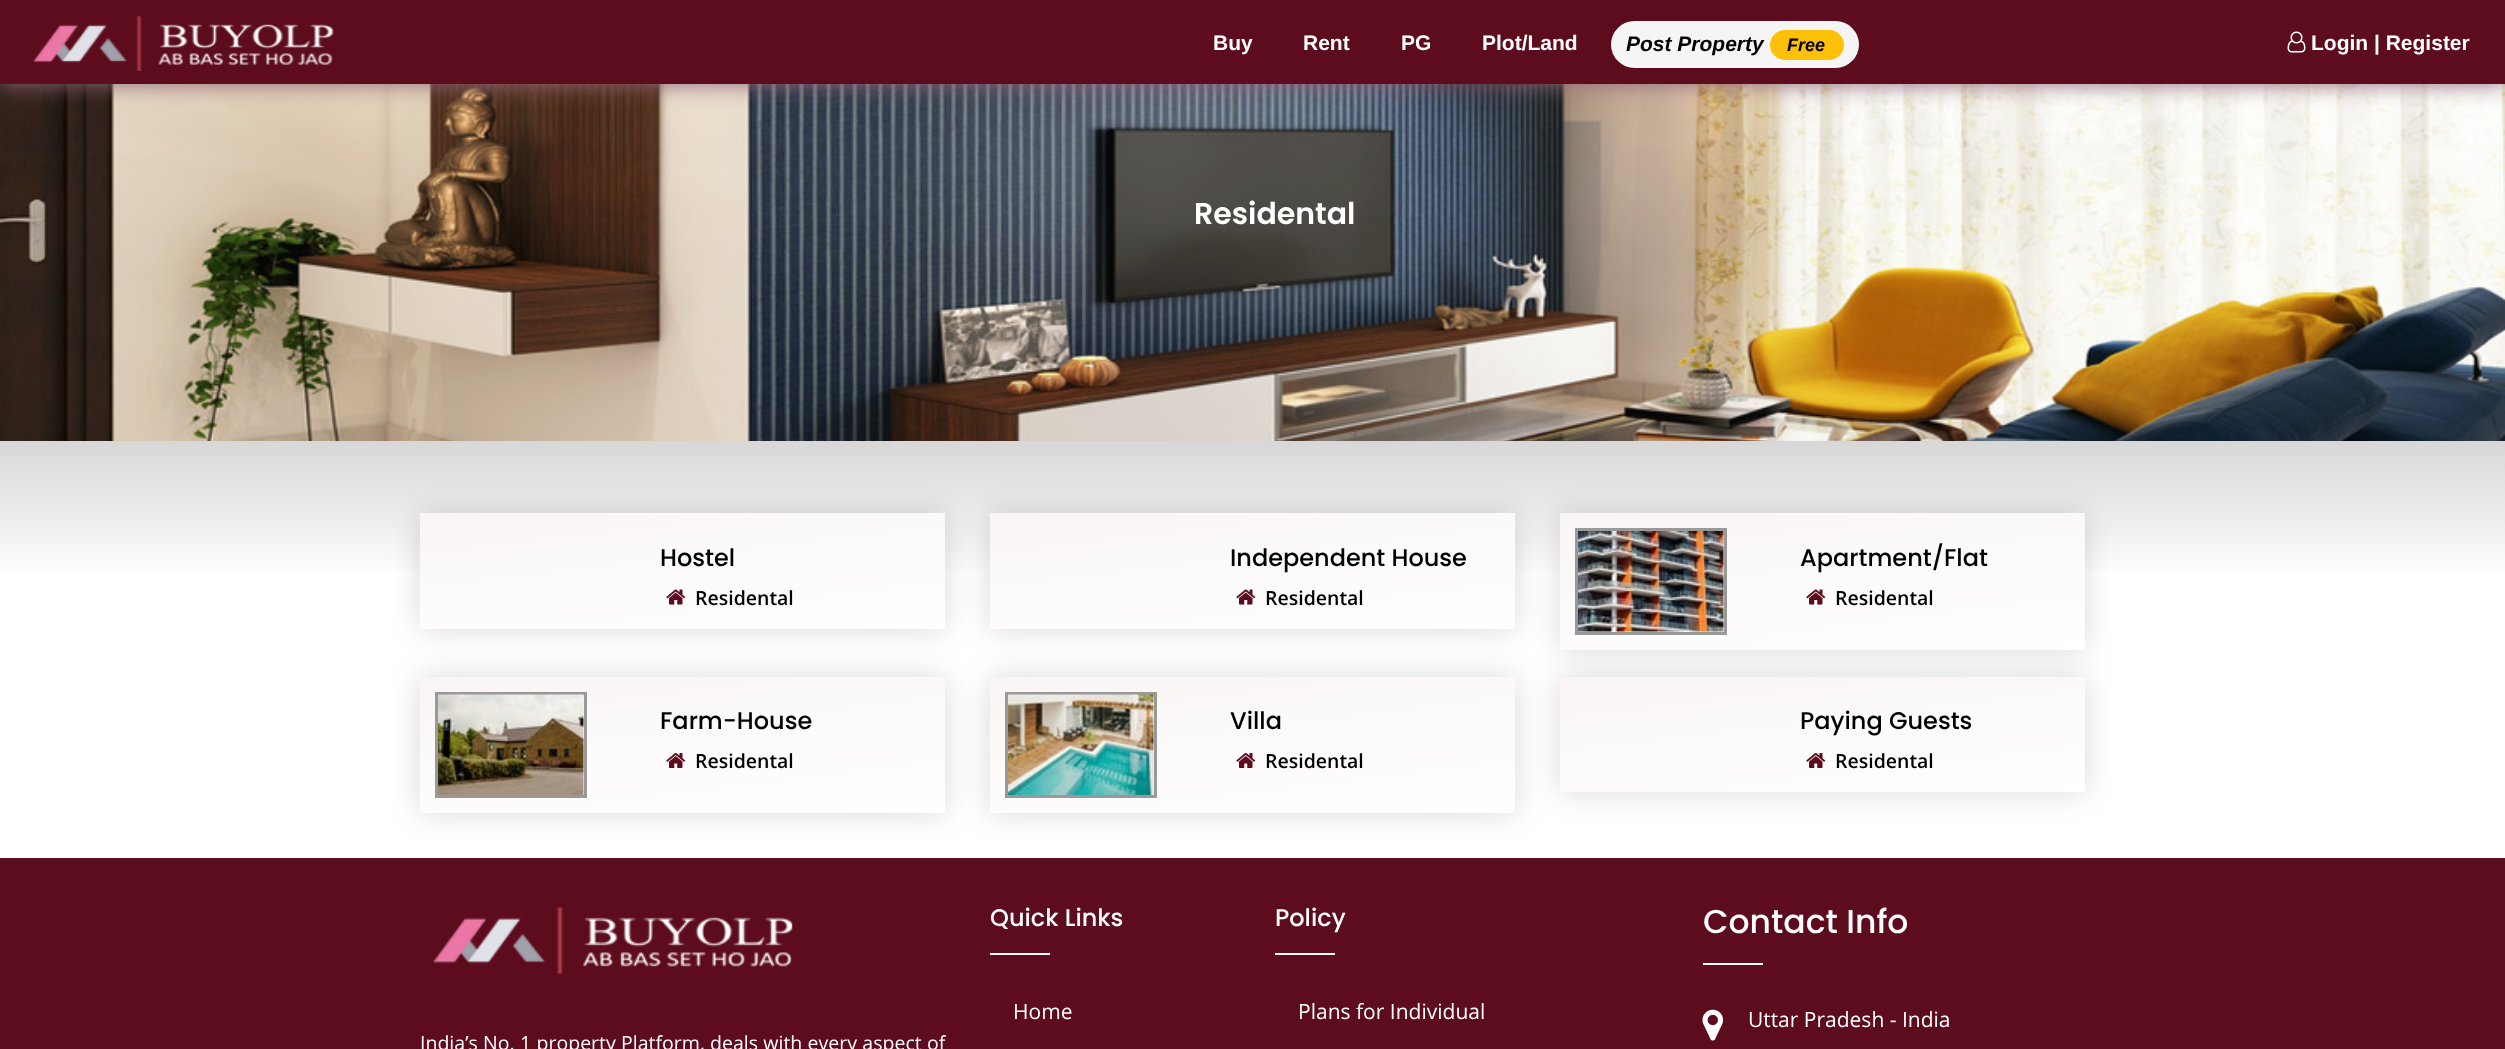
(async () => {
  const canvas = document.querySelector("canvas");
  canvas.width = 2505;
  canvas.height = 1049;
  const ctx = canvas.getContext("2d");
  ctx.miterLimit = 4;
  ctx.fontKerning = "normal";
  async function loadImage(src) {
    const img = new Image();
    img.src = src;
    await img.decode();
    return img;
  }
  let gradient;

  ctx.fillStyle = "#ffffff";
  ctx.fillRect(0, 0, 2505, 1049);
  ctx.drawImage(await loadImage("img/3.png"), 0, 84, 2505, 357);
  ctx.fillStyle = "#90667a";
  ctx.filter = "blur(11px)";
  ctx.beginPath();
  ctx.rect(0, 0, 2505, 84);
  ctx.fill();
  ctx.filter = "none";
  ctx.fillStyle = "#5d0c1d";
  ctx.fillRect(0, 0, 2505, 84);
  ctx.drawImage(await loadImage("img/1.png"), 33, 16, 301, 55);
  ctx.fillStyle = "#f5f5f5";
  ctx.beginPath();
  ctx.roundRect(1611, 21, 248, 47, 23.5);
  ctx.fill();
  ctx.fillStyle = "#ffc107";
  ctx.beginPath();
  ctx.roundRect(1770, 30, 74, 30, 15);
  ctx.fill();
  ctx.drawImage(await loadImage("img/2.png"), 2287, 31, 19, 22);
  gradient = ctx.createLinearGradient(1253, 441, 1253, 858);
  gradient.addColorStop(0, "#d7d7d7");
  gradient.addColorStop(0.33, "#ffffff");
  gradient.addColorStop(1, "#ffffff");
  ctx.fillStyle = gradient;
  ctx.fillRect(0, 441, 2505, 129);
  ctx.fillStyle = "rgba(0, 0, 0, 0.15)";
  ctx.filter = "blur(15px)";
  ctx.beginPath();
  ctx.rect(420, 513, 525, 116);
  ctx.fill();
  ctx.filter = "none";
  gradient = ctx.createLinearGradient(672, 482, 693, 659);
  gradient.addColorStop(0, "#faf5f5");
  gradient.addColorStop(1, "#ffffff");
  ctx.fillStyle = gradient;
  ctx.fillRect(420, 513, 525, 116);
  ctx.drawImage(await loadImage("img/4.png"), 666, 589, 20, 16);
  ctx.fillStyle = "rgba(0, 0, 0, 0.15)";
  ctx.filter = "blur(15px)";
  ctx.beginPath();
  ctx.rect(990, 513, 525, 116);
  ctx.fill();
  ctx.filter = "none";
  gradient = ctx.createLinearGradient(1242, 482, 1263, 659);
  gradient.addColorStop(0, "#faf5f5");
  gradient.addColorStop(1, "#ffffff");
  ctx.fillStyle = gradient;
  ctx.fillRect(990, 513, 525, 116);
  ctx.drawImage(await loadImage("img/4.png"), 1236, 589, 20, 16);
  ctx.fillStyle = "rgba(0, 0, 0, 0.15)";
  ctx.filter = "blur(15px)";
  ctx.beginPath();
  ctx.rect(1560, 513, 525, 137);
  ctx.fill();
  ctx.filter = "none";
  gradient = ctx.createLinearGradient(1810, 482, 1835, 680);
  gradient.addColorStop(0, "#faf5f5");
  gradient.addColorStop(1, "#ffffff");
  ctx.fillStyle = gradient;
  ctx.fillRect(1560, 513, 525, 137);
  ctx.strokeStyle = "#999999";
  ctx.lineWidth = 3;
  ctx.strokeRect(1576.5, 529.5, 149, 104);
  ctx.drawImage(await loadImage("img/5.png"), 1578, 531, 146, 101);
  ctx.drawImage(await loadImage("img/6.png"), 1806, 589, 20, 16);
  ctx.fillStyle = "#5d0c1d";
  ctx.fillRect(0, 858, 2505, 191);
  ctx.fillStyle = "rgba(0, 0, 0, 0.15)";
  ctx.filter = "blur(15px)";
  ctx.beginPath();
  ctx.rect(420, 677, 525, 136);
  ctx.fill();
  ctx.filter = "none";
  gradient = ctx.createLinearGradient(670, 646, 695, 844);
  gradient.addColorStop(0, "#faf5f5");
  gradient.addColorStop(1, "#ffffff");
  ctx.fillStyle = gradient;
  ctx.fillRect(420, 677, 525, 136);
  ctx.strokeRect(436.5, 693.5, 149, 103);
  ctx.drawImage(await loadImage("img/7.png"), 438, 694, 146, 101);
  ctx.drawImage(await loadImage("img/8.png"), 666, 753, 20, 15);
  ctx.fillStyle = "rgba(0, 0, 0, 0.15)";
  ctx.filter = "blur(15px)";
  ctx.beginPath();
  ctx.rect(990, 677, 525, 136);
  ctx.fill();
  ctx.filter = "none";
  gradient = ctx.createLinearGradient(1240, 646, 1265, 844);
  gradient.addColorStop(0, "#faf5f5");
  gradient.addColorStop(1, "#ffffff");
  ctx.fillStyle = gradient;
  ctx.fillRect(990, 677, 525, 136);
  ctx.strokeRect(1006.5, 693.5, 149, 103);
  ctx.drawImage(await loadImage("img/9.png"), 1008, 694, 146, 101);
  ctx.drawImage(await loadImage("img/8.png"), 1236, 753, 20, 15);
  ctx.fillStyle = "rgba(0, 0, 0, 0.15)";
  ctx.filter = "blur(15px)";
  ctx.beginPath();
  ctx.rect(1560, 677, 525, 115);
  ctx.fill();
  ctx.filter = "none";
  gradient = ctx.createLinearGradient(1812, 646, 1833, 823);
  gradient.addColorStop(0, "#faf5f5");
  gradient.addColorStop(1, "#ffffff");
  ctx.fillStyle = gradient;
  ctx.fillRect(1560, 677, 525, 115);
  ctx.drawImage(await loadImage("img/10.png"), 1806, 753, 20, 15);
  for (const [x, y, w, h, color] of [
    [990, 953, 60, 2, "#ffffff"],
    [1275, 953, 60, 2, "#ffffff"],
    [1703, 963, 60, 2, "#ffffff"],
  ]) {
    ctx.fillStyle = color;
    ctx.fillRect(x, y, w, h);
  }
  ctx.drawImage(await loadImage("img/11.png"), 1702, 1009, 22, 32);
  ctx.drawImage(await loadImage("img/12.png"), 433, 907, 360, 67);
  ctx.font = "bold 21px Liberation Sans";
  for (const [text, x, y] of [
    ["Buy", 1213, 50],
    ["Rent", 1303, 50],
    ["PG", 1401, 50],
    ["Plot/Land", 1482, 50],
  ]) {
    ctx.fillText(text, x, y);
  }
  ctx.font = "italic bold 21px Liberation Sans";
  ctx.fillStyle = "#000000";
  ctx.fillText("Post Property", 1626, 51);
  ctx.font = "italic bold 18px Liberation Sans";
  ctx.fillText("Free", 1787, 51);
  ctx.font = "bold 21px Liberation Sans";
  ctx.fillStyle = "#ffffff";
  ctx.fillText("Login | Register", 2311, 50);
  ctx.font = "600 30px Poppins";
  ctx.fillText("Residental", 1194, 224);
  ctx.font = "500 24px Poppins";
  ctx.fillStyle = "#000000";
  ctx.fillText("Hostel", 660, 566);
  ctx.font = "600 19.5px Open Sans";
  ctx.fillText("Residental", 695, 605);
  ctx.font = "500 24px Poppins";
  ctx.fillText("Independent House", 1230, 566);
  ctx.font = "600 19.5px Open Sans";
  ctx.fillText("Residental", 1265, 605);
  ctx.font = "500 24px Poppins";
  ctx.fillText("Apartment/Flat", 1800, 566);
  ctx.font = "600 19.5px Open Sans";
  ctx.fillText("Residental", 1835, 605);
  ctx.font = "500 24px Poppins";
  ctx.fillText("Farm-House", 660, 729);
  ctx.font = "600 19.5px Open Sans";
  ctx.fillText("Residental", 695, 768);
  ctx.font = "500 24px Poppins";
  ctx.fillText("Villa", 1230, 729);
  ctx.font = "600 19.5px Open Sans";
  ctx.fillText("Residental", 1265, 768);
  ctx.font = "500 24px Poppins";
  ctx.fillText("Paying Guests", 1800, 729);
  ctx.font = "600 19.5px Open Sans";
  ctx.fillText("Residental", 1835, 768);
  ctx.font = "500 24px Poppins";
  ctx.fillStyle = "#ffffff";
  ctx.fillText("Quick Links", 990, 926);
  ctx.font = "21px Open Sans";
  ctx.fillText("Home", 1013, 1019);
  ctx.font = "500 24px Poppins";
  ctx.fillText("Policy", 1275, 926);
  ctx.font = "21px Open Sans";
  ctx.fillText("Plans for Individual", 1298, 1019);
  ctx.font = "500 33px Poppins";
  ctx.fillText("Contact Info", 1703, 933);
  ctx.font = "21px Open Sans";
  ctx.fillText("Uttar Pradesh - India", 1748, 1027);
  ctx.wordSpacing = "0.25px";
  ctx.font = "19.5px Open Sans";
  ctx.fillText("India’s No. 1 property Platform, deals with every aspect of", 420, 1050);
})();
